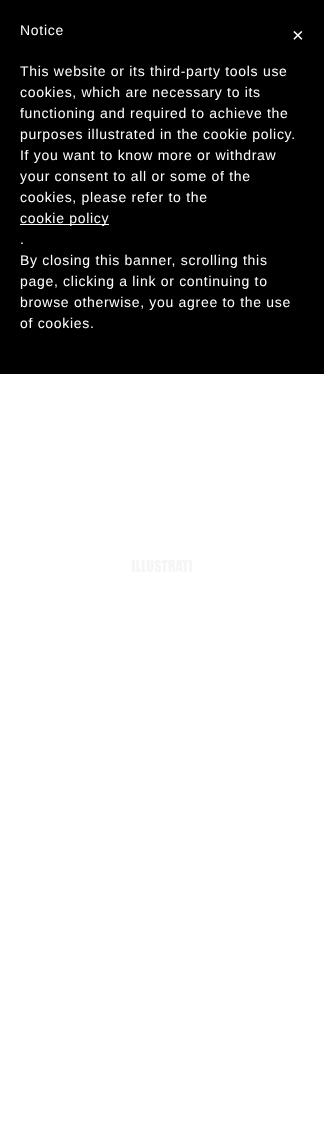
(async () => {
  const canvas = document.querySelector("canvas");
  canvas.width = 324;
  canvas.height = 1132;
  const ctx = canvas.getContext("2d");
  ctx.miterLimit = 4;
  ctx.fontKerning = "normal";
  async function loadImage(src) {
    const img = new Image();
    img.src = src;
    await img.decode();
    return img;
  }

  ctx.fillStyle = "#ffffff";
  ctx.fillRect(0, 0, 324, 1132);
  ctx.fillStyle = "#000000";
  ctx.fillRect(0, 0, 324, 374);
  ctx.fillStyle = "#ffffff";
  ctx.fillRect(20, 224, 89, 1);
  ctx.drawImage(await loadImage("img/1.png"), 132, 560, 60, 12);
  ctx.letterSpacing = "0.7px";
  ctx.font = "14px Liberation Sans";
  for (const [text, x, y] of [
    ["Notice", 20, 35],
    ["This website or its third-party tools use", 20, 76],
    ["cookies, which are necessary to its", 20, 97],
    ["functioning and required to achieve the", 20, 118],
    ["purposes illustrated in the cookie policy.", 20, 139],
    ["If you want to know more or withdraw", 20, 160],
    ["your consent to all or some of the", 20, 181],
    ["cookies, please refer to the", 20, 202],
    ["cookie policy", 20, 223],
    [".", 20, 244],
    ["By closing this banner, scrolling this", 20, 265],
    ["page, clicking a link or continuing to", 20, 286],
    ["browse otherwise, you agree to the use", 20, 307],
    ["of cookies.", 20, 328],
  ]) {
    ctx.fillText(text, x, y);
  }
  ctx.letterSpacing = "0px";
  ctx.font = "20px Liberation Sans";
  ctx.fillText("×", 292, 42);
})();
